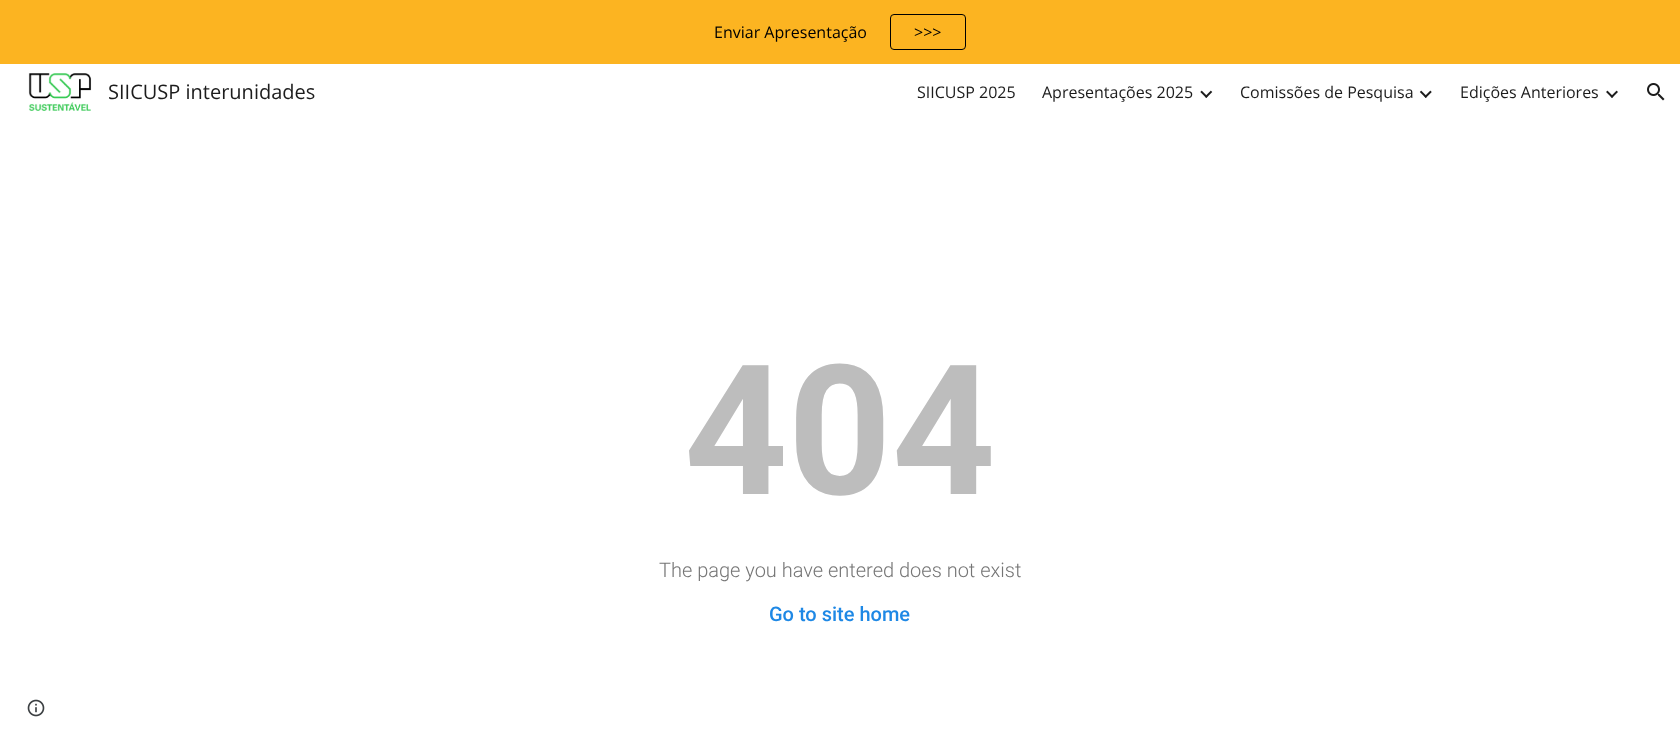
(async () => {
  const canvas = document.querySelector("canvas");
  canvas.width = 1680;
  canvas.height = 742;
  const ctx = canvas.getContext("2d");
  ctx.miterLimit = 4;
  ctx.fontKerning = "normal";
  async function loadImage(src) {
    const img = new Image();
    img.src = src;
    await img.decode();
    return img;
  }

  ctx.fillStyle = "#ffffff";
  ctx.fillRect(0, 0, 1680, 742);
  ctx.fillStyle = "#fcb421";
  ctx.fillRect(0, 0, 1680, 64);
  ctx.beginPath();
  ctx.roundRect(890.5, 14.5, 75, 35, 3.5);
  ctx.strokeStyle = "#000000";
  ctx.stroke();
  ctx.drawImage(await loadImage("img/1.png"), 28, 73, 64, 38);
  ctx.drawImage(await loadImage("img/2.png"), 1200, 90, 13, 8);
  ctx.drawImage(await loadImage("img/3.png"), 1419, 90, 13, 8);
  ctx.drawImage(await loadImage("img/4.png"), 1606, 90, 12, 8);
  ctx.drawImage(await loadImage("img/5.png"), 1647, 83, 18, 18);
  ctx.drawImage(await loadImage("img/6.png"), 27, 699, 18, 18);
  ctx.font = "16px Open Sans";
  ctx.fillStyle = "#000000";
  ctx.fillText("Enviar Apresentação", 714, 38);
  ctx.fillText(">>>", 914, 38);
  ctx.font = "20px Open Sans";
  ctx.fillStyle = "#1c1c1c";
  ctx.fillText("SIICUSP interunidades", 108, 99);
  ctx.font = "16px Open Sans";
  for (const [text, x, y] of [
    ["SIICUSP 2025", 917, 98],
    ["Apresentações 2025", 1042, 98],
    ["Comissões de Pesquisa", 1240, 98],
    ["Edições Anteriores", 1460, 98],
  ]) {
    ctx.fillText(text, x, y);
  }
  ctx.font = "bold 181px Roboto";
  ctx.fillStyle = "#bdbdbd";
  ctx.fillText("404", 684, 494);
  ctx.font = "300 20px Roboto";
  ctx.fillStyle = "#757575";
  ctx.fillText("The page you have entered does not exist", 659, 577);
  ctx.font = "500 20px Roboto";
  ctx.fillStyle = "#1e88e5";
  ctx.fillText("Go to site home", 769, 621);
})();
